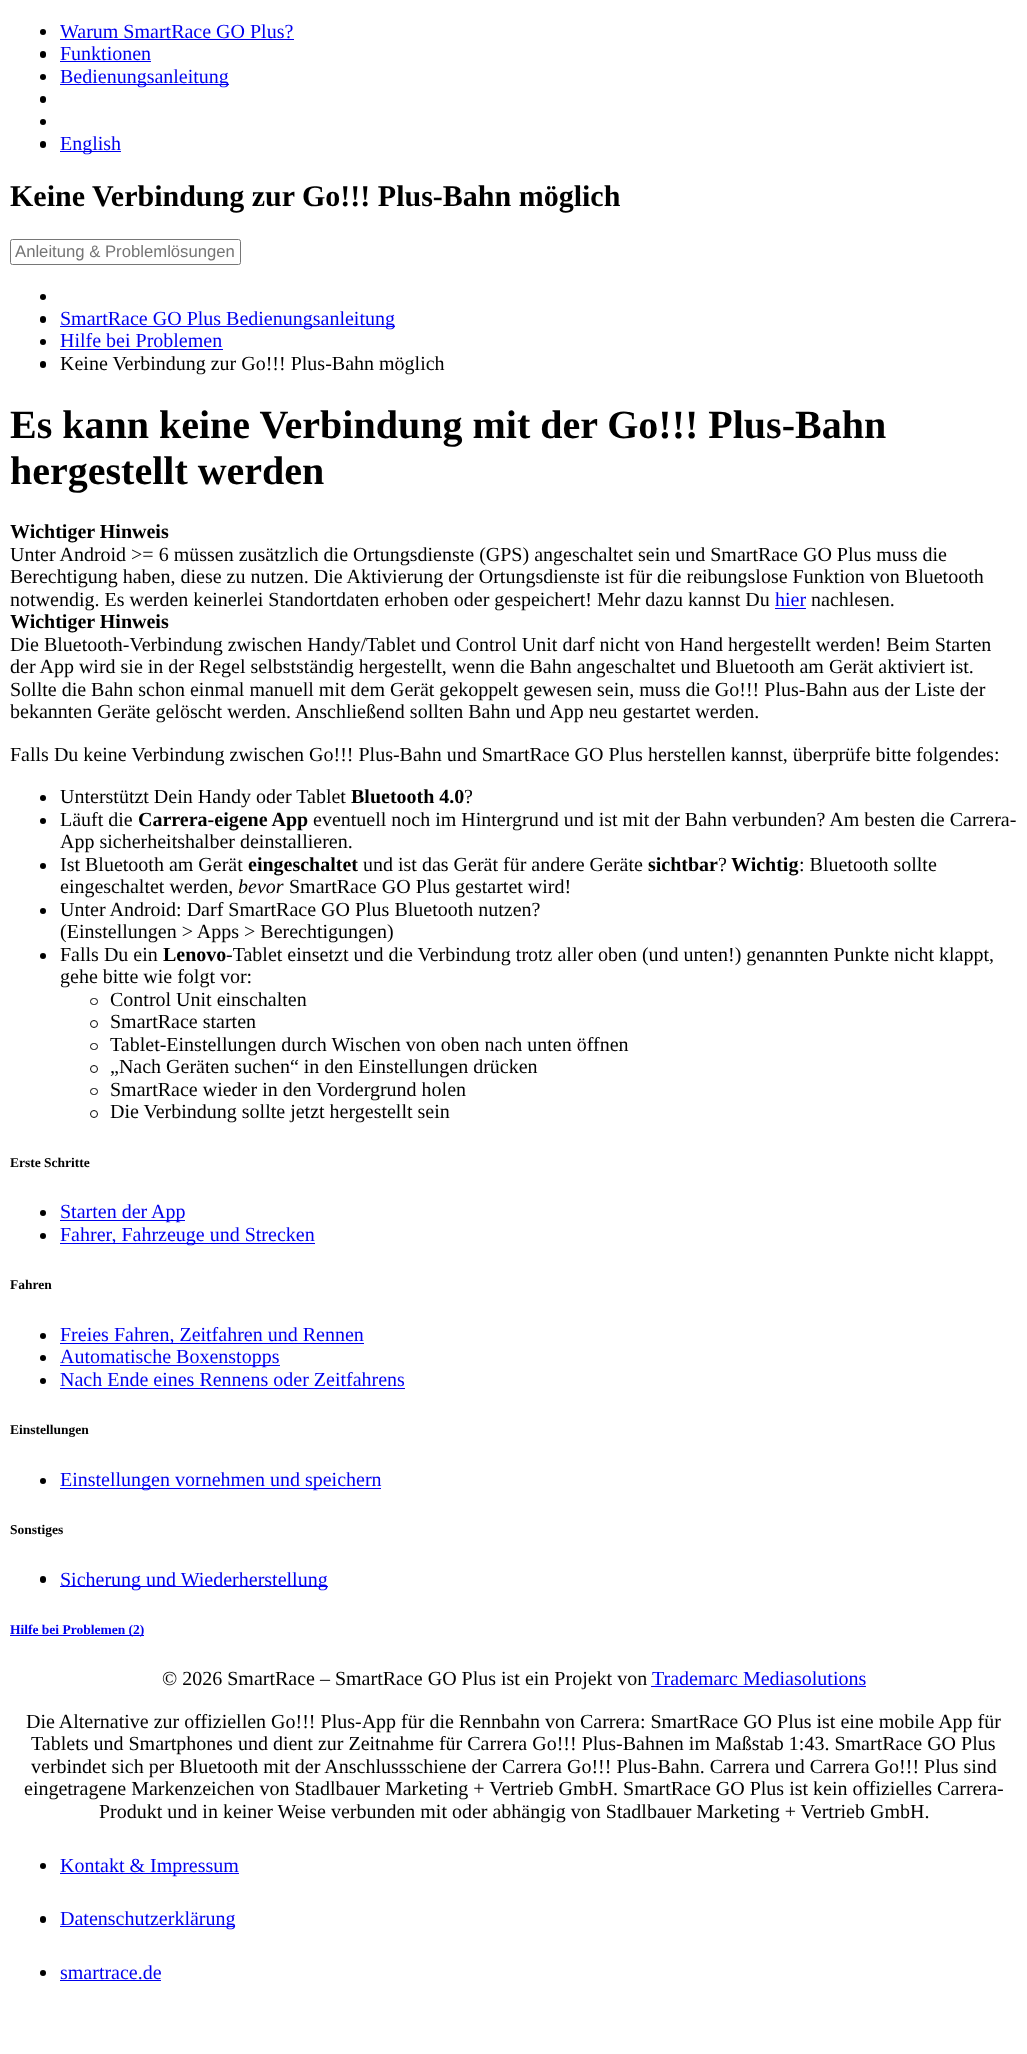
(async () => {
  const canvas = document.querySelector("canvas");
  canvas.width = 1027;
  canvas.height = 2054;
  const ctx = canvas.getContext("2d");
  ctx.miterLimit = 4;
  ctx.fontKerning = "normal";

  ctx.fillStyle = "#ffffff";
  ctx.fillRect(0, 0, 1027, 2054);
  ctx.fillStyle = "#000000";
  ctx.beginPath();
  ctx.arc(43, 32, 3, 0, Math.PI * 2);
  ctx.fill();
  ctx.fillStyle = "#0000ee";
  ctx.fillRect(60, 39, 234, 1);
  ctx.fillStyle = "#000000";
  ctx.beginPath();
  ctx.roundRect(40, 51, 6, 7, 3);
  ctx.fill();
  ctx.fillStyle = "#0000ee";
  ctx.fillRect(60, 61, 91, 1);
  ctx.fillStyle = "#000000";
  ctx.beginPath();
  ctx.arc(43, 77, 3, 0, Math.PI * 2);
  ctx.fill();
  ctx.fillStyle = "#0000ee";
  ctx.fillRect(60, 84, 169, 1);
  ctx.fillStyle = "#000000";
  ctx.beginPath();
  ctx.roundRect(40, 96, 6, 7, 3);
  ctx.fill();
  ctx.beginPath();
  ctx.arc(43, 122, 3, 0, Math.PI * 2);
  ctx.fill();
  ctx.beginPath();
  ctx.roundRect(40, 141, 6, 7, 3);
  ctx.fill();
  ctx.fillStyle = "#0000ee";
  ctx.fillRect(60, 151, 61, 1);
  ctx.beginPath();
  ctx.roundRect(10.5, 239.5, 230, 25, 2);
  ctx.strokeStyle = "#767676";
  ctx.stroke();
  ctx.fillStyle = "#000000";
  ctx.beginPath();
  ctx.arc(43, 297, 3, 0, Math.PI * 2);
  ctx.fill();
  ctx.beginPath();
  ctx.roundRect(40, 316, 6, 7, 3);
  ctx.fill();
  ctx.fillStyle = "#0000ee";
  ctx.fillRect(60, 326, 335, 1);
  ctx.fillStyle = "#000000";
  ctx.beginPath();
  ctx.arc(43, 342, 3, 0, Math.PI * 2);
  ctx.fill();
  ctx.fillStyle = "#0000ee";
  ctx.fillRect(60, 349, 163, 1);
  ctx.fillStyle = "#000000";
  ctx.beginPath();
  ctx.roundRect(40, 361, 6, 7, 3);
  ctx.fill();
  ctx.fillStyle = "#0000ee";
  ctx.fillRect(775, 608, 31, 1);
  ctx.fillStyle = "#000000";
  ctx.beginPath();
  ctx.arc(43, 798, 3, 0, Math.PI * 2);
  ctx.fill();
  ctx.beginPath();
  ctx.arc(43, 821, 3, 0, Math.PI * 2);
  ctx.fill();
  ctx.beginPath();
  ctx.arc(43, 866, 3, 0, Math.PI * 2);
  ctx.fill();
  ctx.beginPath();
  ctx.arc(43, 911, 3, 0, Math.PI * 2);
  ctx.fill();
  ctx.beginPath();
  ctx.arc(43, 956, 3, 0, Math.PI * 2);
  ctx.fill();
  ctx.beginPath();
  ctx.roundRect(90.5, 998.5, 7, 6, 3);
  ctx.strokeStyle = "#000000";
  ctx.stroke();
  ctx.beginPath();
  ctx.arc(94, 1024, 3.5, 0, Math.PI * 2);
  ctx.stroke();
  ctx.beginPath();
  ctx.roundRect(90.5, 1043.5, 7, 6, 3);
  ctx.stroke();
  ctx.beginPath();
  ctx.arc(94, 1069, 3.5, 0, Math.PI * 2);
  ctx.stroke();
  ctx.beginPath();
  ctx.roundRect(90.5, 1088.5, 7, 6, 3);
  ctx.stroke();
  ctx.beginPath();
  ctx.arc(94, 1114, 3.5, 0, Math.PI * 2);
  ctx.stroke();
  ctx.beginPath();
  ctx.arc(43, 1213, 3, 0, Math.PI * 2);
  ctx.fill();
  ctx.fillStyle = "#0000ee";
  ctx.fillRect(60, 1220, 125, 1);
  ctx.fillStyle = "#000000";
  ctx.beginPath();
  ctx.arc(43, 1236, 3, 0, Math.PI * 2);
  ctx.fill();
  ctx.fillStyle = "#0000ee";
  ctx.fillRect(60, 1243, 255, 1);
  ctx.fillStyle = "#000000";
  ctx.beginPath();
  ctx.arc(43, 1336, 3, 0, Math.PI * 2);
  ctx.fill();
  ctx.fillStyle = "#0000ee";
  ctx.fillRect(60, 1343, 304, 1);
  ctx.fillStyle = "#000000";
  ctx.beginPath();
  ctx.arc(43, 1358, 3, 0, Math.PI * 2);
  ctx.fill();
  ctx.fillStyle = "#0000ee";
  ctx.fillRect(60, 1365, 220, 1);
  ctx.fillStyle = "#000000";
  ctx.beginPath();
  ctx.arc(43, 1381, 3, 0, Math.PI * 2);
  ctx.fill();
  ctx.fillStyle = "#0000ee";
  ctx.fillRect(60, 1388, 345, 1);
  ctx.fillStyle = "#000000";
  ctx.beginPath();
  ctx.arc(43, 1481, 3, 0, Math.PI * 2);
  ctx.fill();
  ctx.fillStyle = "#0000ee";
  ctx.fillRect(60, 1488, 321, 1);
  ctx.fillStyle = "#000000";
  ctx.beginPath();
  ctx.roundRect(40, 1576, 6, 7, 3);
  ctx.fill();
  for (const [x, y, w, h, color] of [
    [60, 1586, 268, 1, "#0000ee"],
    [10, 1635, 134, 1, "#0000ee"],
    [651, 1686, 215, 1, "#0000ee"],
  ]) {
    ctx.fillStyle = color;
    ctx.fillRect(x, y, w, h);
  }
  ctx.fillStyle = "#000000";
  ctx.beginPath();
  ctx.arc(43, 1866, 3, 0, Math.PI * 2);
  ctx.fill();
  ctx.fillStyle = "#0000ee";
  ctx.fillRect(60, 1873, 179, 1);
  ctx.fillStyle = "#000000";
  ctx.beginPath();
  ctx.roundRect(40, 1916, 6, 7, 3);
  ctx.fill();
  ctx.fillStyle = "#0000ee";
  ctx.fillRect(60, 1926, 175, 1);
  ctx.fillStyle = "#000000";
  ctx.beginPath();
  ctx.arc(43, 1973, 3, 0, Math.PI * 2);
  ctx.fill();
  ctx.fillStyle = "#0000ee";
  ctx.fillRect(60, 1980, 101, 1);
  ctx.font = "20px Liberation Serif";
  for (const [text, x, y] of [
    ["Warum SmartRace GO Plus?", 60, 38],
    ["Funktionen", 60, 60],
    ["Bedienungsanleitung", 60, 83],
    ["English", 60, 150],
  ]) {
    ctx.fillText(text, x, y);
  }
  ctx.font = "bold 30px Liberation Serif";
  ctx.fillStyle = "#000000";
  ctx.fillText("Keine Verbindung zur Go!!! Plus-Bahn möglich", 10, 206);
  ctx.font = "16.7px Liberation Sans";
  ctx.fillStyle = "#757575";
  ctx.fillText("Anleitung & Problemlösungen", 15, 257);
  ctx.font = "20px Liberation Serif";
  ctx.fillStyle = "#0000ee";
  ctx.fillText("SmartRace GO Plus Bedienungsanleitung", 60, 325);
  ctx.fillText("Hilfe bei Problemen", 60, 347);
  ctx.fillStyle = "#000000";
  ctx.fillText("Keine Verbindung zur Go!!! Plus-Bahn möglich", 60, 370);
  ctx.font = "bold 40px Liberation Serif";
  ctx.fillText("Es kann keine Verbindung mit der Go!!! Plus-Bahn", 10, 438);
  ctx.fillText("hergestellt werden", 10, 484);
  ctx.font = "bold 20px Liberation Serif";
  ctx.fillText("Wichtiger Hinweis", 10, 538);
  ctx.font = "20px Liberation Serif";
  for (const [text, x, y] of [
    ["Unter Android >= 6 müssen zusätzlich die Ortungsdienste (GPS) angeschaltet sein und SmartRace GO Plus muss die", 10, 561],
    ["Berechtigung haben, diese zu nutzen. Die Aktivierung der Ortungsdienste ist für die reibungslose Funktion von Bluetooth", 10, 583],
    ["notwendig. Es werden keinerlei Standortdaten erhoben oder gespeichert! Mehr dazu kannst Du", 10, 606],
  ]) {
    ctx.fillText(text, x, y);
  }
  ctx.fillStyle = "#0000ee";
  ctx.fillText("hier", 775, 606);
  ctx.fillStyle = "#000000";
  ctx.fillText("nachlesen.", 811, 606);
  ctx.font = "bold 20px Liberation Serif";
  ctx.fillText("Wichtiger Hinweis", 10, 628);
  ctx.font = "20px Liberation Serif";
  for (const [text, x, y] of [
    ["Die Bluetooth-Verbindung zwischen Handy/Tablet und Control Unit darf nicht von Hand hergestellt werden! Beim Starten", 10, 651],
    ["der App wird sie in der Regel selbstständig hergestellt, wenn die Bahn angeschaltet und Bluetooth am Gerät aktiviert ist.", 10, 673],
    ["Sollte die Bahn schon einmal manuell mit dem Gerät gekoppelt gewesen sein, muss die Go!!! Plus-Bahn aus der Liste der", 10, 696],
    ["bekannten Geräte gelöscht werden. Anschließend sollten Bahn und App neu gestartet werden.", 10, 718],
    ["Falls Du keine Verbindung zwischen Go!!! Plus-Bahn und SmartRace GO Plus herstellen kannst, überprüfe bitte folgendes:", 10, 761],
    ["Unterstützt Dein Handy oder Tablet", 60, 803],
  ]) {
    ctx.fillText(text, x, y);
  }
  ctx.font = "bold 20px Liberation Serif";
  ctx.fillText("Bluetooth 4.0", 351, 803);
  ctx.font = "20px Liberation Serif";
  ctx.fillText("?", 464, 803);
  ctx.fillText("Läuft die", 60, 826);
  ctx.font = "bold 20px Liberation Serif";
  ctx.fillText("Carrera-eigene App", 138, 826);
  ctx.font = "20px Liberation Serif";
  for (const [text, x, y] of [
    ["eventuell noch im Hintergrund und ist mit der Bahn verbunden? Am besten die Carrera-", 313, 826],
    ["App sicherheitshalber deinstallieren.", 60, 848],
    ["Ist Bluetooth am Gerät", 60, 871],
  ]) {
    ctx.fillText(text, x, y);
  }
  ctx.font = "bold 20px Liberation Serif";
  ctx.fillText("eingeschaltet", 248, 871);
  ctx.font = "20px Liberation Serif";
  ctx.fillText("und ist das Gerät für andere Geräte", 363, 871);
  ctx.font = "bold 20px Liberation Serif";
  ctx.fillText("sichtbar", 648, 871);
  ctx.font = "20px Liberation Serif";
  ctx.fillText("?", 718, 871);
  ctx.font = "bold 20px Liberation Serif";
  ctx.fillText("Wichtig", 731, 871);
  ctx.font = "20px Liberation Serif";
  ctx.fillText(": Bluetooth sollte", 799, 871);
  ctx.fillText("eingeschaltet werden,", 60, 893);
  ctx.font = "italic 20px Liberation Serif";
  ctx.fillText("bevor", 238, 893);
  ctx.font = "20px Liberation Serif";
  for (const [text, x, y] of [
    ["SmartRace GO Plus gestartet wird!", 289, 893],
    ["Unter Android: Darf SmartRace GO Plus Bluetooth nutzen?", 60, 916],
    ["(Einstellungen > Apps > Berechtigungen)", 60, 938],
    ["Falls Du ein", 60, 961],
  ]) {
    ctx.fillText(text, x, y);
  }
  ctx.font = "bold 20px Liberation Serif";
  ctx.fillText("Lenovo", 163, 961);
  ctx.font = "20px Liberation Serif";
  for (const [text, x, y] of [
    ["-Tablet einsetzt und die Verbindung trotz aller oben (und unten!) genannten Punkte nicht klappt,", 226, 961],
    ["gehe bitte wie folgt vor:", 60, 983],
    ["Control Unit einschalten", 110, 1006],
    ["SmartRace starten", 110, 1028],
    ["Tablet-Einstellungen durch Wischen von oben nach unten öffnen", 110, 1051],
    ["„Nach Geräten suchen“ in den Einstellungen drücken", 110, 1073],
    ["SmartRace wieder in den Vordergrund holen", 110, 1096],
    ["Die Verbindung sollte jetzt hergestellt sein", 110, 1118],
  ]) {
    ctx.fillText(text, x, y);
  }
  ctx.font = "bold 13.5px Liberation Serif";
  ctx.fillText("Erste Schritte", 10, 1167);
  ctx.font = "20px Liberation Serif";
  ctx.fillStyle = "#0000ee";
  ctx.fillText("Starten der App", 60, 1218);
  ctx.fillText("Fahrer, Fahrzeuge und Strecken", 60, 1241);
  ctx.font = "bold 13.5px Liberation Serif";
  ctx.fillStyle = "#000000";
  ctx.fillText("Fahren", 10, 1289);
  ctx.font = "20px Liberation Serif";
  ctx.fillStyle = "#0000ee";
  for (const [text, x, y] of [
    ["Freies Fahren, Zeitfahren und Rennen", 60, 1341],
    ["Automatische Boxenstopps", 60, 1363],
    ["Nach Ende eines Rennens oder Zeitfahrens", 60, 1386],
  ]) {
    ctx.fillText(text, x, y);
  }
  ctx.font = "bold 13.5px Liberation Serif";
  ctx.fillStyle = "#000000";
  ctx.fillText("Einstellungen", 10, 1434);
  ctx.font = "20px Liberation Serif";
  ctx.fillStyle = "#0000ee";
  ctx.fillText("Einstellungen vornehmen und speichern", 60, 1486);
  ctx.font = "bold 13.5px Liberation Serif";
  ctx.fillStyle = "#000000";
  ctx.fillText("Sonstiges", 10, 1534);
  ctx.font = "20px Liberation Serif";
  ctx.fillStyle = "#0000ee";
  ctx.fillText("Sicherung und Wiederherstellung", 60, 1586);
  ctx.font = "bold 13.5px Liberation Serif";
  ctx.fillText("Hilfe bei Problemen (2)", 10, 1634);
  ctx.font = "20px Liberation Serif";
  ctx.fillStyle = "#000000";
  ctx.fillText("© 2026 SmartRace – SmartRace GO Plus ist ein Projekt von", 162, 1685);
  ctx.fillStyle = "#0000ee";
  ctx.fillText("Trademarc Mediasolutions", 652, 1685);
  ctx.fillStyle = "#000000";
  for (const [text, x, y] of [
    ["Die Alternative zur offiziellen Go!!! Plus-App für die Rennbahn von Carrera: SmartRace GO Plus ist eine mobile App für", 26, 1728],
    ["Tablets und Smartphones und dient zur Zeitnahme für Carrera Go!!! Plus-Bahnen im Maßstab 1:43. SmartRace GO Plus", 31, 1750],
    ["verbindet sich per Bluetooth mit der Anschlussschiene der Carrera Go!!! Plus-Bahn. Carrera und Carrera Go!!! Plus sind", 31, 1773],
    ["eingetragene Markenzeichen von Stadlbauer Marketing + Vertrieb GmbH. SmartRace GO Plus ist kein offizielles Carrera-", 24, 1795],
    ["Produkt und in keiner Weise verbunden mit oder abhängig von Stadlbauer Marketing + Vertrieb GmbH.", 99, 1818],
  ]) {
    ctx.fillText(text, x, y);
  }
  ctx.fillStyle = "#0000ee";
  for (const [text, x, y] of [
    ["Kontakt & Impressum", 60, 1872],
    ["Datenschutzerklärung", 60, 1925],
    ["smartrace.de", 60, 1979],
  ]) {
    ctx.fillText(text, x, y);
  }
})();
